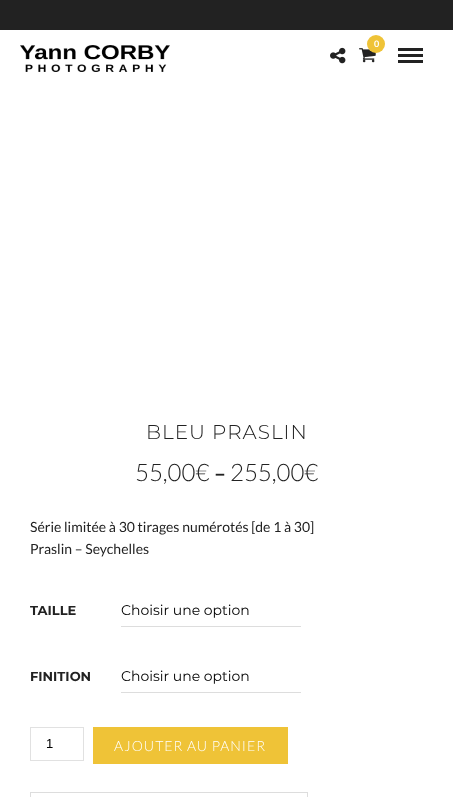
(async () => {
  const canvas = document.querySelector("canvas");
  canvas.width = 453;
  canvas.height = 797;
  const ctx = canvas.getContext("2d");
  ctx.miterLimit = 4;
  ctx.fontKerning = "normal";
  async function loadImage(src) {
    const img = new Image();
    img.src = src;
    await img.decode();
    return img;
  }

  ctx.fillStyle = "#ffffff";
  ctx.fillRect(0, 0, 453, 797);
  ctx.fillStyle = "#222222";
  ctx.fillRect(0, 0, 453, 30);
  ctx.drawImage(await loadImage("img/1.png"), 359, 48, 17, 15);
  ctx.fillStyle = "#efc337";
  ctx.beginPath();
  ctx.arc(376, 44, 9, 0, Math.PI * 2);
  ctx.fill();
  ctx.drawImage(await loadImage("img/2.png"), 330, 47, 16, 17);
  for (const [x, y, w, h, color] of [
    [398, 48, 25, 3, "#222222"],
    [398, 54, 25, 3, "#222222"],
    [398, 60, 25, 3, "#222222"],
  ]) {
    ctx.fillStyle = color;
    ctx.fillRect(x, y, w, h);
  }
  ctx.drawImage(await loadImage("img/3.png"), 20, 45, 150, 27);
  ctx.fillStyle = "#dddddd";
  ctx.fillRect(121, 626, 180, 1);
  ctx.fillRect(121, 692, 180, 1);
  ctx.strokeStyle = "#e1e1e1";
  ctx.strokeRect(30.5, 727.5, 53, 33);
  for (const [x, y, w, h, color] of [
    [93, 727, 195, 37, "#efc337"],
    [30, 792, 278, 1, "#dddddd"],
    [307, 792, 1, 5, "#dddddd"],
    [30, 792, 1, 5, "#dddddd"],
  ]) {
    ctx.fillStyle = color;
    ctx.fillRect(x, y, w, h);
  }
  ctx.font = "bold 9px Lato";
  ctx.fillStyle = "#ffffff";
  ctx.fillText("0", 374, 47);
  ctx.letterSpacing = "1px";
  ctx.font = "100 20px Montserrat";
  ctx.fillStyle = "#222222";
  ctx.fillText("BLEU PRASLIN", 146, 439);
  ctx.letterSpacing = "0px";
  ctx.font = "300 24px Lato";
  ctx.fillText("55,00€", 135, 481);
  ctx.font = "bold 21px Lato";
  ctx.fillText("–", 214, 481);
  ctx.font = "300 24px Lato";
  ctx.fillText("255,00€", 230, 481);
  ctx.font = "14px Lato";
  ctx.fillText("Série limitée à 30 tirages numérotés [de 1 à 30]", 30, 532);
  ctx.fillText("Praslin – Seychelles", 30, 554);
  ctx.font = "bold 13px Montserrat";
  ctx.fillText("TAILLE", 30, 615);
  ctx.font = "14px Montserrat";
  ctx.fillStyle = "#000000";
  ctx.fillText("Choisir une option", 121, 615);
  ctx.font = "bold 13px Montserrat";
  ctx.fillStyle = "#222222";
  ctx.fillText("FINITION", 30, 681);
  ctx.font = "14px Montserrat";
  ctx.fillStyle = "#000000";
  ctx.fillText("Choisir une option", 121, 681);
  ctx.font = "13px Liberation Sans";
  ctx.fillText("1", 46, 748);
  ctx.letterSpacing = "1px";
  ctx.font = "300 14px Lato";
  ctx.fillStyle = "#ffffff";
  ctx.fillText("AJOUTER AU PANIER", 114, 751);
})();
